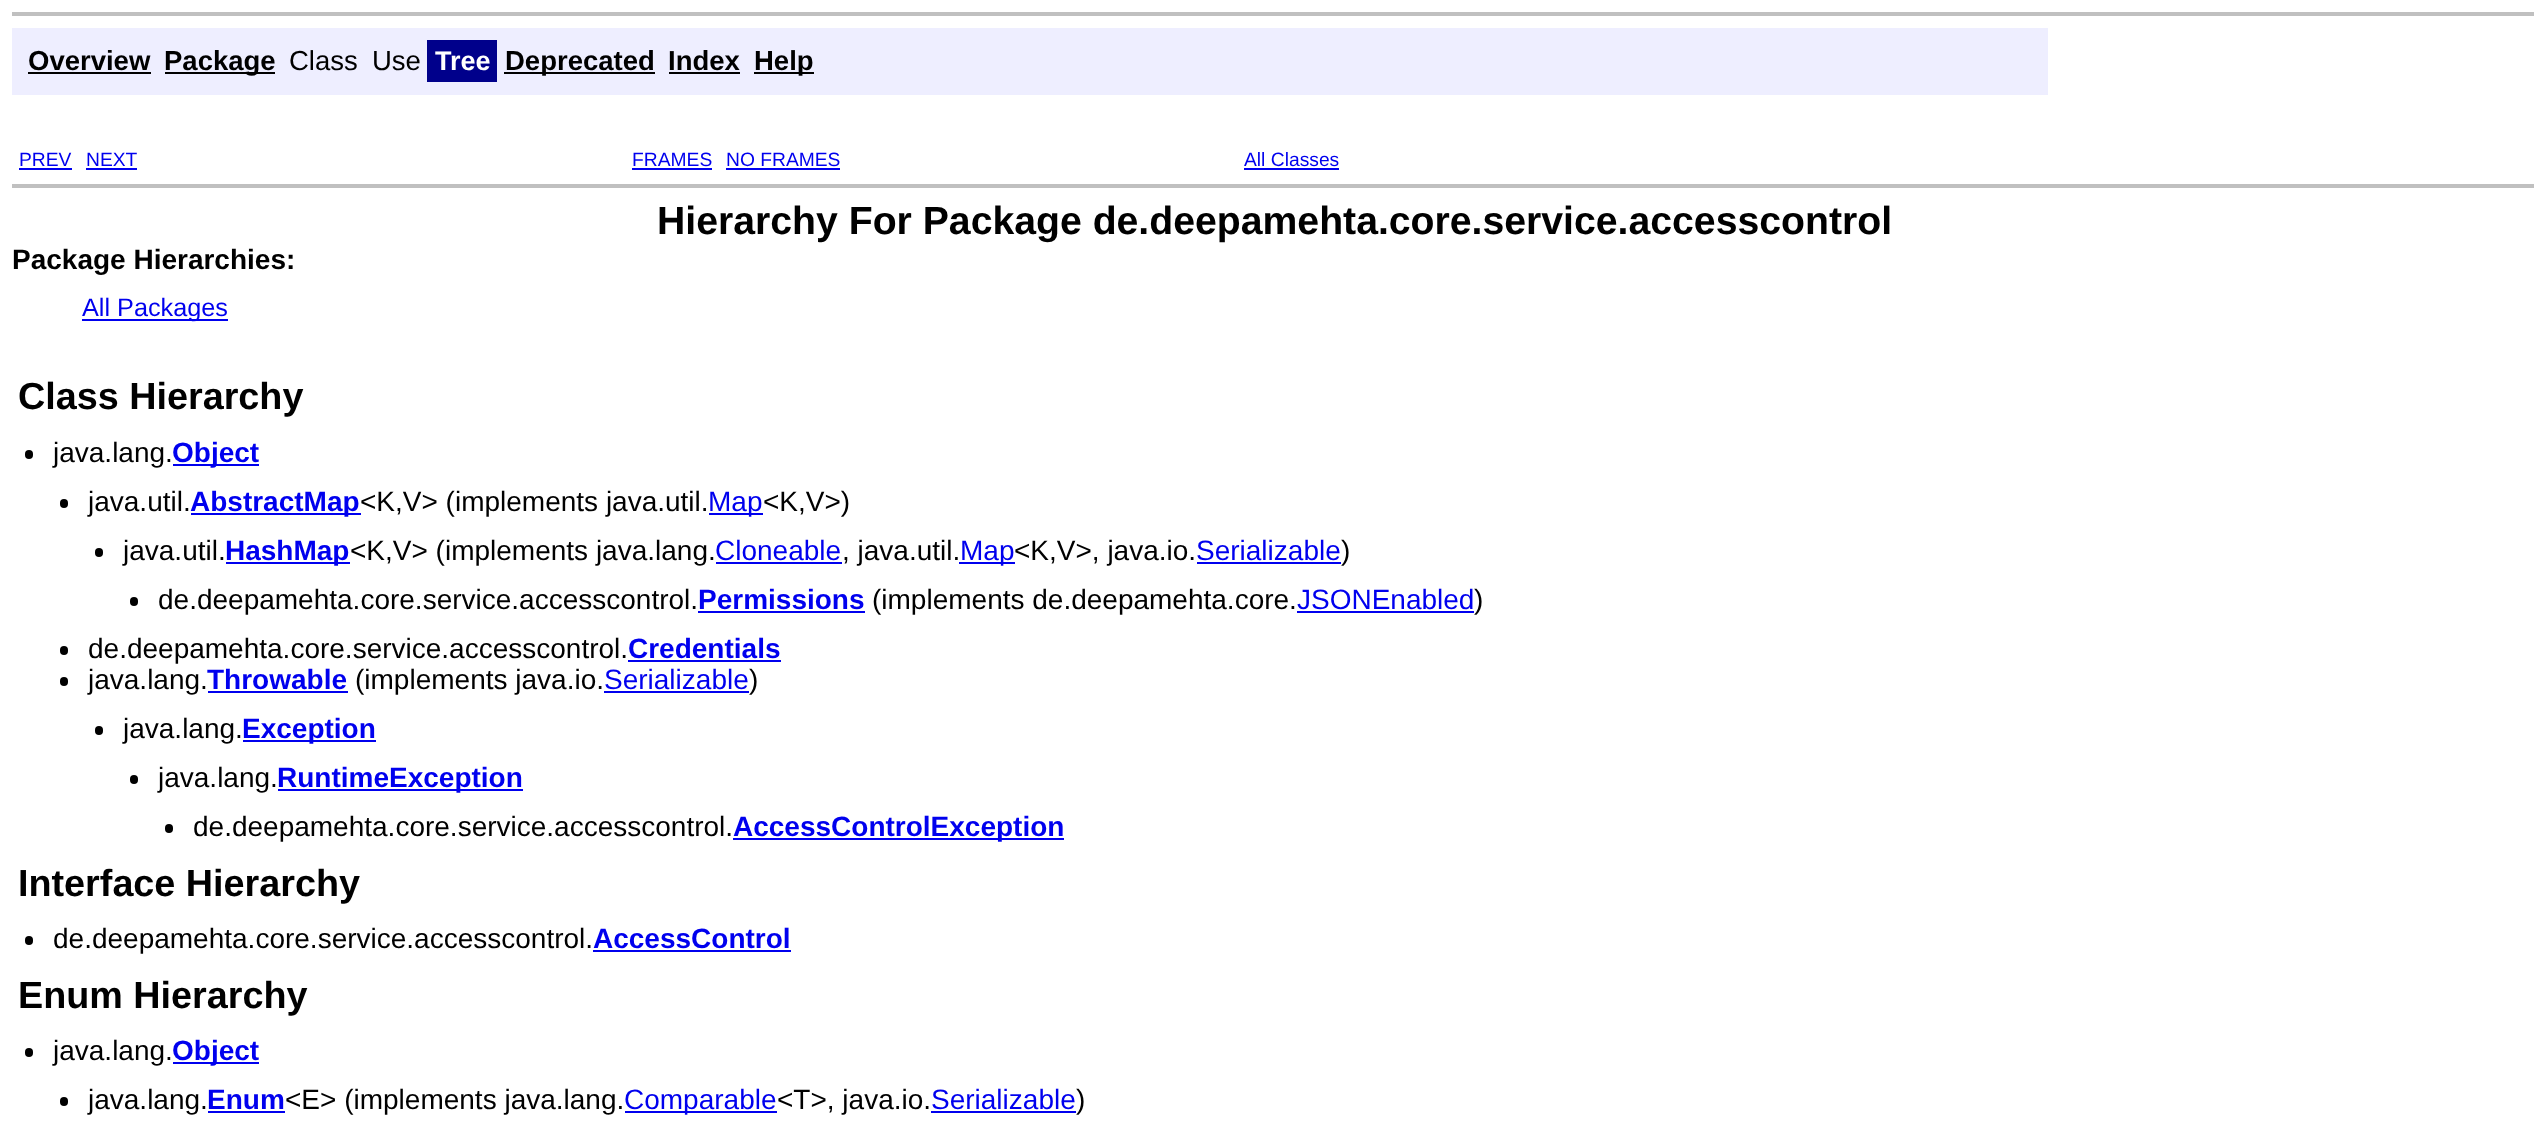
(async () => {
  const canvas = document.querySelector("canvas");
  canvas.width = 2547;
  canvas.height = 1146;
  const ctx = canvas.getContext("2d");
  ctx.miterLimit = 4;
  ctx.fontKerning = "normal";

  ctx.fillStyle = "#ffffff";
  ctx.fillRect(0, 0, 2547, 1146);
  for (const [x, y, w, h, color] of [
    [12, 12, 2522, 4, "#c0c0c0"],
    [12, 28, 2036, 67, "#eeeeff"],
    [28, 72, 123, 2, "#000000"],
    [165, 72, 110, 2, "#000000"],
    [427, 40, 70, 42, "#00008b"],
    [504, 72, 151, 2, "#000000"],
    [669, 72, 71, 2, "#000000"],
    [754, 72, 60, 2, "#000000"],
    [12, 184, 2522, 4, "#c0c0c0"],
    [19, 168, 53, 2, "#0000ee"],
    [86, 168, 51, 2, "#0000ee"],
    [632, 168, 80, 2, "#0000ee"],
    [726, 168, 114, 2, "#0000ee"],
    [1244, 168, 95, 2, "#0000ee"],
    [82, 319, 146, 2, "#0000ee"],
  ]) {
    ctx.fillStyle = color;
    ctx.fillRect(x, y, w, h);
  }
  ctx.fillStyle = "#000000";
  ctx.beginPath();
  ctx.roundRect(25, 450, 8, 9, 4);
  ctx.fill();
  ctx.fillStyle = "#0000ee";
  ctx.fillRect(173, 464, 86, 2);
  ctx.fillStyle = "#000000";
  ctx.beginPath();
  ctx.roundRect(60, 499, 8, 9, 4);
  ctx.fill();
  ctx.fillStyle = "#0000ee";
  ctx.fillRect(191, 513, 170, 2);
  ctx.fillRect(709, 513, 54, 2);
  ctx.fillStyle = "#000000";
  ctx.beginPath();
  ctx.roundRect(95, 548, 8, 9, 4);
  ctx.fill();
  for (const [x, y, w, h, color] of [
    [226, 562, 124, 2, "#0000ee"],
    [716, 562, 126, 2, "#0000ee"],
    [959, 562, 56, 2, "#0000ee"],
    [1197, 562, 144, 2, "#0000ee"],
  ]) {
    ctx.fillStyle = color;
    ctx.fillRect(x, y, w, h);
  }
  ctx.fillStyle = "#000000";
  ctx.beginPath();
  ctx.roundRect(130, 597, 8, 9, 4);
  ctx.fill();
  ctx.fillStyle = "#0000ee";
  ctx.fillRect(698, 611, 167, 2);
  ctx.fillRect(1297, 611, 177, 2);
  ctx.fillStyle = "#000000";
  ctx.beginPath();
  ctx.roundRect(60, 646, 8, 9, 4);
  ctx.fill();
  ctx.fillStyle = "#0000ee";
  ctx.fillRect(628, 660, 153, 2);
  ctx.fillStyle = "#000000";
  ctx.beginPath();
  ctx.roundRect(60, 677, 8, 9, 4);
  ctx.fill();
  ctx.fillStyle = "#0000ee";
  ctx.fillRect(208, 691, 140, 2);
  ctx.fillRect(604, 691, 145, 2);
  ctx.fillStyle = "#000000";
  ctx.beginPath();
  ctx.roundRect(95, 726, 8, 9, 4);
  ctx.fill();
  ctx.fillStyle = "#0000ee";
  ctx.fillRect(243, 740, 133, 2);
  ctx.fillStyle = "#000000";
  ctx.beginPath();
  ctx.roundRect(130, 775, 8, 9, 4);
  ctx.fill();
  ctx.fillStyle = "#0000ee";
  ctx.fillRect(278, 789, 245, 2);
  ctx.fillStyle = "#000000";
  ctx.beginPath();
  ctx.roundRect(165, 824, 8, 9, 4);
  ctx.fill();
  ctx.fillStyle = "#0000ee";
  ctx.fillRect(733, 838, 331, 2);
  ctx.fillStyle = "#000000";
  ctx.beginPath();
  ctx.roundRect(25, 936, 8, 9, 4);
  ctx.fill();
  ctx.fillStyle = "#0000ee";
  ctx.fillRect(593, 950, 198, 2);
  ctx.fillStyle = "#000000";
  ctx.beginPath();
  ctx.roundRect(25, 1048, 8, 9, 4);
  ctx.fill();
  ctx.fillStyle = "#0000ee";
  ctx.fillRect(173, 1062, 86, 2);
  ctx.fillStyle = "#000000";
  ctx.beginPath();
  ctx.roundRect(60, 1097, 8, 9, 4);
  ctx.fill();
  for (const [x, y, w, h, color] of [
    [208, 1111, 77, 2, "#0000ee"],
    [625, 1111, 152, 2, "#0000ee"],
    [931, 1111, 145, 2, "#0000ee"],
  ]) {
    ctx.fillStyle = color;
    ctx.fillRect(x, y, w, h);
  }
  ctx.font = "bold 27.5px Liberation Sans";
  ctx.fillStyle = "#000000";
  ctx.fillText("Overview", 28, 70);
  ctx.fillText("Package", 164, 70);
  ctx.font = "27.5px Liberation Sans";
  ctx.fillText("Class", 289, 70);
  ctx.fillText("Use", 372, 70);
  ctx.font = "bold 27px Liberation Sans";
  ctx.fillStyle = "#ffffff";
  ctx.fillText("Tree", 435, 70);
  ctx.font = "bold 27.5px Liberation Sans";
  ctx.fillStyle = "#000000";
  for (const [text, x, y] of [
    ["Deprecated", 505, 70],
    ["Index", 668, 70],
    ["Help", 754, 70],
  ]) {
    ctx.fillText(text, x, y);
  }
  ctx.font = "19.25px Liberation Sans";
  ctx.fillStyle = "#0000ee";
  for (const [text, x, y] of [
    ["PREV", 19, 166],
    ["NEXT", 86, 166],
    ["FRAMES", 632, 166],
    ["NO FRAMES", 726, 166],
    ["All Classes", 1244, 166],
  ]) {
    ctx.fillText(text, x, y);
  }
  ctx.font = "bold 39.2px Liberation Sans";
  ctx.fillStyle = "#000000";
  ctx.fillText("Hierarchy For Package de.deepamehta.core.service.accesscontrol", 657, 234);
  ctx.font = "bold 28px Liberation Sans";
  ctx.fillText("Package Hierarchies:", 12, 269);
  ctx.font = "25.25px Liberation Sans";
  ctx.fillStyle = "#0000ee";
  ctx.fillText("All Packages", 82, 316);
  ctx.font = "bold 37.75px Liberation Sans";
  ctx.fillStyle = "#000000";
  ctx.fillText("Class Hierarchy", 18, 409);
  ctx.font = "28px Liberation Sans";
  ctx.fillText("java.lang.", 53, 462);
  ctx.font = "bold 28px Liberation Sans";
  ctx.fillStyle = "#0000ee";
  ctx.fillText("Object", 172, 462);
  ctx.font = "28px Liberation Sans";
  ctx.fillStyle = "#000000";
  ctx.fillText("java.util.", 88, 511);
  ctx.font = "bold 28px Liberation Sans";
  ctx.fillStyle = "#0000ee";
  ctx.fillText("AbstractMap", 190, 511);
  ctx.font = "28px Liberation Sans";
  ctx.fillStyle = "#000000";
  ctx.fillText("<K,V> (implements java.util.", 360, 511);
  ctx.fillStyle = "#0000ee";
  ctx.fillText("Map", 708, 511);
  ctx.fillStyle = "#000000";
  ctx.fillText("<K,V>)", 763, 511);
  ctx.fillText("java.util.", 123, 560);
  ctx.font = "bold 28px Liberation Sans";
  ctx.fillStyle = "#0000ee";
  ctx.fillText("HashMap", 225, 560);
  ctx.font = "28px Liberation Sans";
  ctx.fillStyle = "#000000";
  ctx.fillText("<K,V> (implements java.lang.", 350, 560);
  ctx.fillStyle = "#0000ee";
  ctx.fillText("Cloneable", 715, 560);
  ctx.fillStyle = "#000000";
  ctx.fillText(", java.util.", 842, 560);
  ctx.fillStyle = "#0000ee";
  ctx.fillText("Map", 960, 560);
  ctx.fillStyle = "#000000";
  ctx.fillText("<K,V>, java.io.", 1014, 560);
  ctx.fillStyle = "#0000ee";
  ctx.fillText("Serializable", 1196, 560);
  ctx.fillStyle = "#000000";
  ctx.fillText(")", 1341, 560);
  ctx.fillText("de.deepamehta.core.service.accesscontrol.", 158, 609);
  ctx.font = "bold 28px Liberation Sans";
  ctx.fillStyle = "#0000ee";
  ctx.fillText("Permissions", 698, 609);
  ctx.font = "28px Liberation Sans";
  ctx.fillStyle = "#000000";
  ctx.fillText("(implements de.deepamehta.core.", 872, 609);
  ctx.fillStyle = "#0000ee";
  ctx.fillText("JSONEnabled", 1297, 609);
  ctx.fillStyle = "#000000";
  ctx.fillText(")", 1474, 609);
  ctx.fillText("de.deepamehta.core.service.accesscontrol.", 88, 658);
  ctx.font = "bold 28px Liberation Sans";
  ctx.fillStyle = "#0000ee";
  ctx.fillText("Credentials", 628, 658);
  ctx.font = "28px Liberation Sans";
  ctx.fillStyle = "#000000";
  ctx.fillText("java.lang.", 88, 689);
  ctx.font = "bold 28px Liberation Sans";
  ctx.fillStyle = "#0000ee";
  ctx.fillText("Throwable", 207, 689);
  ctx.font = "28px Liberation Sans";
  ctx.fillStyle = "#000000";
  ctx.fillText("(implements java.io.", 355, 689);
  ctx.fillStyle = "#0000ee";
  ctx.fillText("Serializable", 604, 689);
  ctx.fillStyle = "#000000";
  ctx.fillText(")", 749, 689);
  ctx.fillText("java.lang.", 123, 738);
  ctx.font = "bold 28px Liberation Sans";
  ctx.fillStyle = "#0000ee";
  ctx.fillText("Exception", 242, 738);
  ctx.font = "28px Liberation Sans";
  ctx.fillStyle = "#000000";
  ctx.fillText("java.lang.", 158, 787);
  ctx.font = "bold 28px Liberation Sans";
  ctx.fillStyle = "#0000ee";
  ctx.fillText("RuntimeException", 277, 787);
  ctx.font = "28px Liberation Sans";
  ctx.fillStyle = "#000000";
  ctx.fillText("de.deepamehta.core.service.accesscontrol.", 193, 836);
  ctx.font = "bold 28px Liberation Sans";
  ctx.fillStyle = "#0000ee";
  ctx.fillText("AccessControlException", 733, 836);
  ctx.font = "bold 37.75px Liberation Sans";
  ctx.fillStyle = "#000000";
  ctx.fillText("Interface Hierarchy", 18, 896);
  ctx.font = "28px Liberation Sans";
  ctx.fillText("de.deepamehta.core.service.accesscontrol.", 53, 948);
  ctx.font = "bold 28px Liberation Sans";
  ctx.fillStyle = "#0000ee";
  ctx.fillText("AccessControl", 593, 948);
  ctx.font = "bold 37.75px Liberation Sans";
  ctx.fillStyle = "#000000";
  ctx.fillText("Enum Hierarchy", 18, 1008);
  ctx.font = "28px Liberation Sans";
  ctx.fillText("java.lang.", 53, 1060);
  ctx.font = "bold 28px Liberation Sans";
  ctx.fillStyle = "#0000ee";
  ctx.fillText("Object", 172, 1060);
  ctx.font = "28px Liberation Sans";
  ctx.fillStyle = "#000000";
  ctx.fillText("java.lang.", 88, 1109);
  ctx.font = "bold 28px Liberation Sans";
  ctx.fillStyle = "#0000ee";
  ctx.fillText("Enum", 207, 1109);
  ctx.font = "28px Liberation Sans";
  ctx.fillStyle = "#000000";
  ctx.fillText("<E> (implements java.lang.", 285, 1109);
  ctx.fillStyle = "#0000ee";
  ctx.fillText("Comparable", 624, 1109);
  ctx.fillStyle = "#000000";
  ctx.fillText("<T>, java.io.", 777, 1109);
  ctx.fillStyle = "#0000ee";
  ctx.fillText("Serializable", 931, 1109);
  ctx.fillStyle = "#000000";
  ctx.fillText(")", 1076, 1109);
})();
